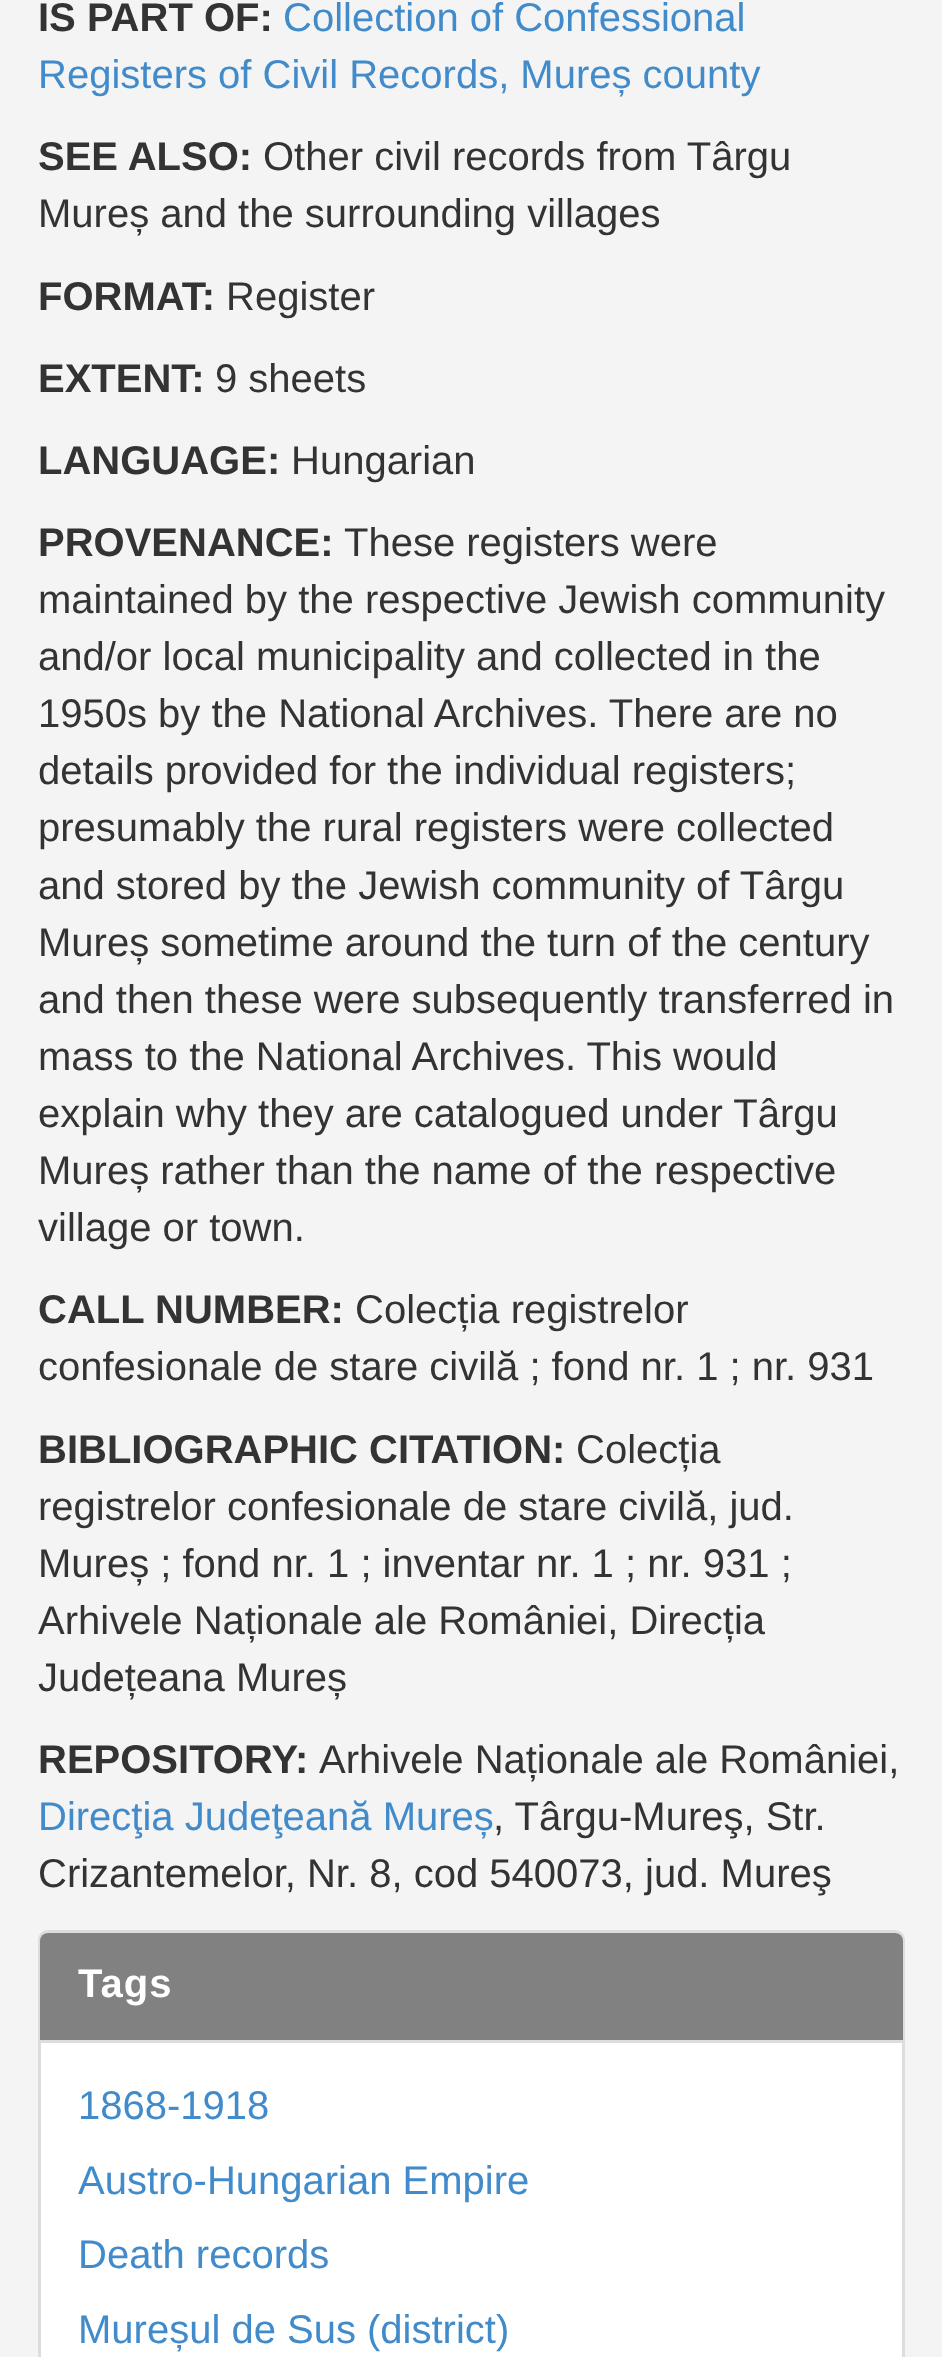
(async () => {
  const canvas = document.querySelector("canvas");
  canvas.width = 942;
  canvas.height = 2357;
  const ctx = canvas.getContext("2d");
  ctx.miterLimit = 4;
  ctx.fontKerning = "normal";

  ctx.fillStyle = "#f4f4f4";
  ctx.fillRect(0, 0, 942, 2357);
  ctx.fillStyle = "#ffffff";
  ctx.beginPath();
  ctx.roundRect(39.5, 1931.5, 864, 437, 8.5);
  ctx.fill();
  ctx.strokeStyle = "#dddddd";
  ctx.lineWidth = 3;
  ctx.stroke();
  ctx.fillStyle = "#818181";
  ctx.beginPath();
  ctx.roundRect(40, 1933, 863, 110, [8, 8, 0, 0]);
  ctx.fill();
  ctx.fillStyle = "#dddddd";
  ctx.fillRect(40, 2040, 863, 3);
  ctx.font = "bold 40px Liberation Sans";
  ctx.fillStyle = "#333333";
  ctx.fillText("IS PART OF:", 38, 31);
  ctx.font = "40px Liberation Sans";
  ctx.fillStyle = "#428bca";
  ctx.fillText("Collection of Confessional", 283, 31);
  ctx.fillText("Registers of Civil Records, Mureș county", 38, 88);
  ctx.font = "bold 40px Liberation Sans";
  ctx.fillStyle = "#333333";
  ctx.fillText("SEE ALSO:", 38, 170);
  ctx.font = "40px Liberation Sans";
  ctx.fillText("Other civil records from Târgu", 263, 170);
  ctx.fillText("Mureș and the surrounding villages", 38, 227);
  ctx.font = "bold 40px Liberation Sans";
  ctx.fillText("FORMAT:", 38, 310);
  ctx.font = "40px Liberation Sans";
  ctx.fillText("Register", 226, 310);
  ctx.font = "bold 40px Liberation Sans";
  ctx.fillText("EXTENT:", 38, 392);
  ctx.font = "40px Liberation Sans";
  ctx.fillText("9 sheets", 215, 392);
  ctx.font = "bold 40px Liberation Sans";
  ctx.fillText("LANGUAGE:", 38, 474);
  ctx.font = "40px Liberation Sans";
  ctx.fillText("Hungarian", 291, 474);
  ctx.font = "bold 40px Liberation Sans";
  ctx.fillText("PROVENANCE:", 38, 556);
  ctx.font = "40px Liberation Sans";
  for (const [text, x, y] of [
    ["These registers were", 344, 556],
    ["maintained by the respective Jewish community", 38, 613],
    ["and/or local municipality and collected in the", 38, 670],
    ["1950s by the National Archives. There are no", 38, 727],
    ["details provided for the individual registers;", 38, 784],
    ["presumably the rural registers were collected", 38, 841],
    ["and stored by the Jewish community of Târgu", 38, 899],
    ["Mureș sometime around the turn of the century", 38, 956],
    ["and then these were subsequently transferred in", 38, 1013],
    ["mass to the National Archives. This would", 38, 1070],
    ["explain why they are catalogued under Târgu", 38, 1127],
    ["Mureș rather than the name of the respective", 38, 1184],
    ["village or town.", 38, 1241],
  ]) {
    ctx.fillText(text, x, y);
  }
  ctx.font = "bold 40px Liberation Sans";
  ctx.fillText("CALL NUMBER:", 38, 1323);
  ctx.font = "40px Liberation Sans";
  ctx.fillText("Colecția registrelor", 355, 1323);
  ctx.fillText("confesionale de stare civilă ; fond nr. 1 ; nr. 931", 38, 1380);
  ctx.font = "bold 40px Liberation Sans";
  ctx.fillText("BIBLIOGRAPHIC CITATION:", 38, 1463);
  ctx.font = "40px Liberation Sans";
  for (const [text, x, y] of [
    ["Colecția", 576, 1463],
    ["registrelor confesionale de stare civilă, jud.", 38, 1520],
    ["Mureș ; fond nr. 1 ; inventar nr. 1 ; nr. 931 ;", 38, 1577],
    ["Arhivele Naționale ale României, Direcția", 38, 1634],
    ["Județeana Mureș", 38, 1691],
  ]) {
    ctx.fillText(text, x, y);
  }
  ctx.font = "bold 40px Liberation Sans";
  ctx.fillText("REPOSITORY:", 38, 1773);
  ctx.font = "40px Liberation Sans";
  ctx.fillText("Arhivele Naționale ale României,", 319, 1773);
  ctx.fillStyle = "#428bca";
  ctx.fillText("Direcţia Judeţeană Mureș", 38, 1830);
  ctx.fillStyle = "#333333";
  ctx.fillText(", Târgu-Mureş, Str.", 493, 1830);
  ctx.fillText("Crizantemelor, Nr. 8, cod 540073, jud. Mureş", 38, 1887);
  ctx.letterSpacing = "1px";
  ctx.font = "bold 40px Liberation Sans";
  ctx.fillStyle = "#ffffff";
  ctx.fillText("Tags", 78, 1997);
  ctx.letterSpacing = "0px";
  ctx.font = "40px Liberation Sans";
  ctx.fillStyle = "#428bca";
  for (const [text, x, y] of [
    ["1868-1918", 78, 2119],
    ["Austro-Hungarian Empire", 78, 2194],
    ["Death records", 78, 2268],
    ["Mureșul de Sus (district)", 78, 2343],
  ]) {
    ctx.fillText(text, x, y);
  }
})();
